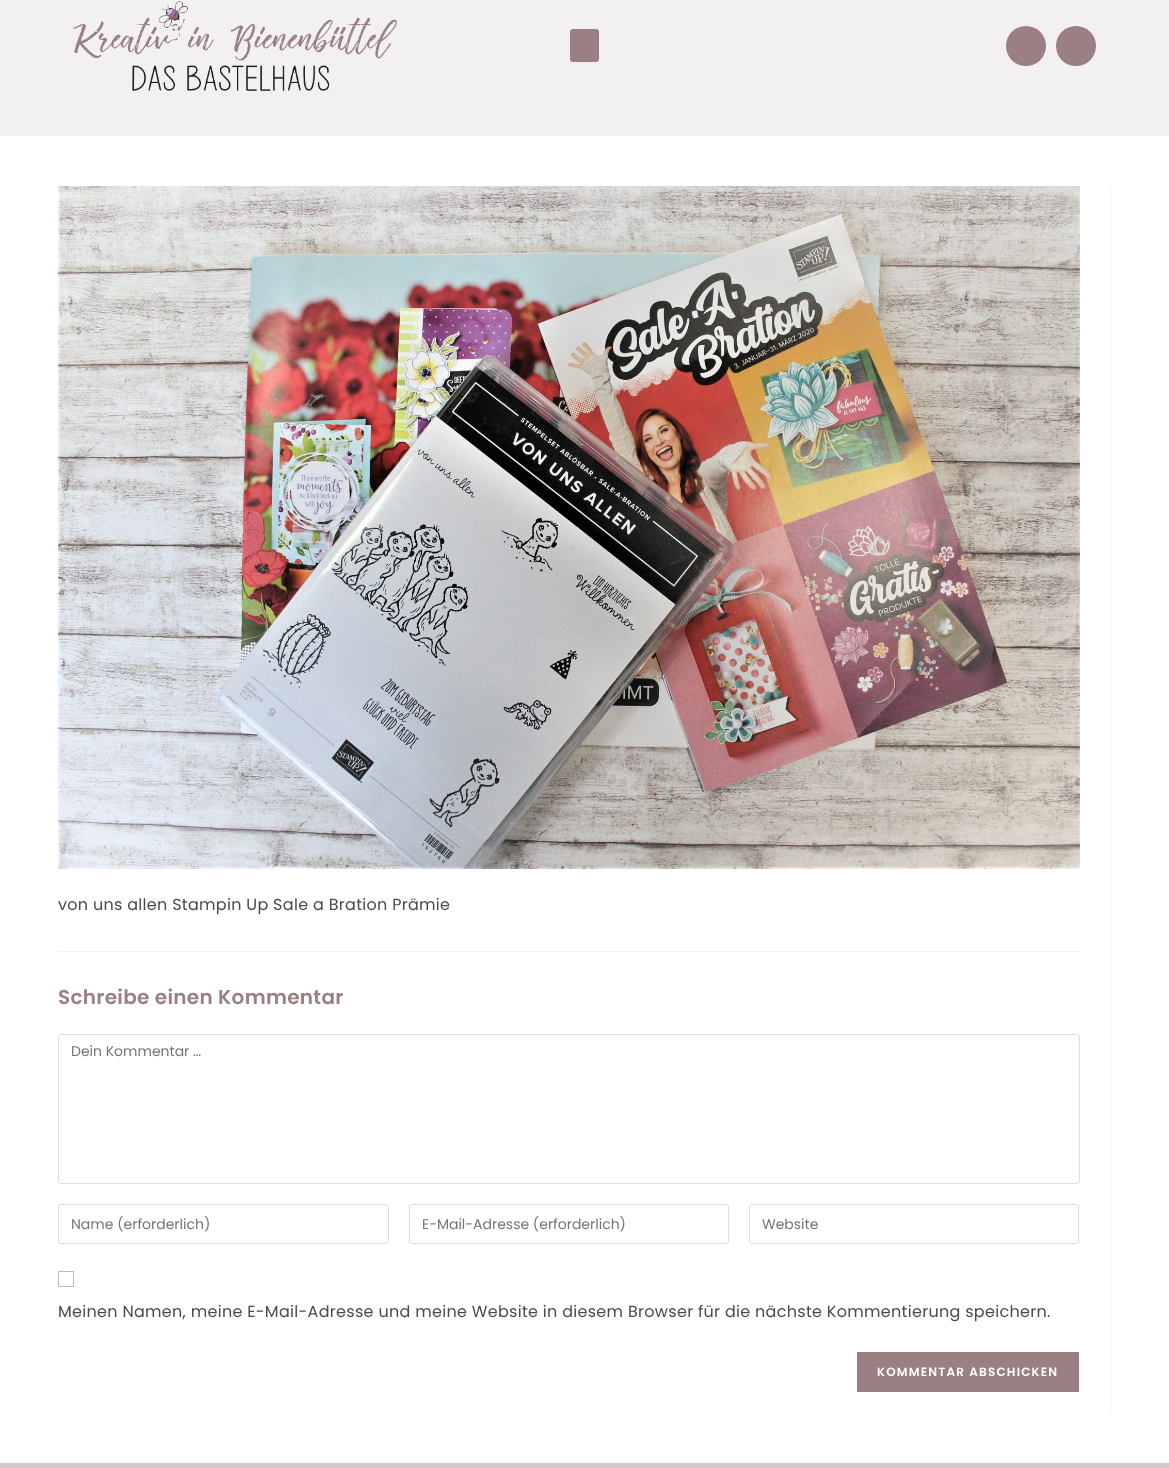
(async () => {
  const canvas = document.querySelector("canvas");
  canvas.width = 1169;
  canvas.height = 1468;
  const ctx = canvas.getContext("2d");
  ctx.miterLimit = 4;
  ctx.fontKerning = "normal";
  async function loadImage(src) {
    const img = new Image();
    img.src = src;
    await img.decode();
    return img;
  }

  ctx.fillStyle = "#ffffff";
  ctx.fillRect(0, 0, 1169, 1468);
  ctx.fillStyle = "#f3f0f2";
  ctx.fillRect(0, 0, 1169, 136);
  ctx.drawImage(await loadImage("img/1.png"), 73, 1, 324, 90);
  ctx.fillStyle = "#9a7f83";
  ctx.beginPath();
  ctx.roundRect(570, 29, 29, 33, 3);
  ctx.fill();
  ctx.beginPath();
  ctx.arc(1026, 46, 20, 0, Math.PI * 2);
  ctx.fill();
  ctx.beginPath();
  ctx.arc(1076, 46, 20, 0, Math.PI * 2);
  ctx.fill();
  ctx.fillStyle = "#f1f1f1";
  ctx.fillRect(1110, 186, 1, 1227);
  ctx.drawImage(await loadImage("img/2.png"), 58, 186, 1022, 683);
  ctx.fillRect(58, 951, 1022, 1);
  ctx.beginPath();
  ctx.roundRect(58.5, 1034.5, 1021, 149, 2.5);
  ctx.strokeStyle = "#dddddd";
  ctx.stroke();
  ctx.beginPath();
  ctx.roundRect(58.5, 1204.5, 330, 39, 2.5);
  ctx.stroke();
  ctx.beginPath();
  ctx.roundRect(409.5, 1204.5, 319, 39, 2.5);
  ctx.stroke();
  ctx.beginPath();
  ctx.roundRect(749.5, 1204.5, 329, 39, 2.5);
  ctx.stroke();
  ctx.strokeStyle = "#bbbbbb";
  ctx.strokeRect(58.5, 1271.5, 15, 15);
  ctx.fillStyle = "#9a7f83";
  ctx.fillRect(857, 1352, 222, 40);
  ctx.fillStyle = "#d3c8ca";
  ctx.fillRect(0, 1463, 1169, 5);
  ctx.letterSpacing = "0.3px";
  ctx.font = "16px Poppins";
  ctx.fillStyle = "#4a4a4a";
  ctx.fillText("von uns allen Stampin Up Sale a Bration Prämie", 58, 910);
  ctx.font = "600 20px Poppins";
  ctx.fillStyle = "#9a7f83";
  ctx.fillText("Schreibe einen Kommentar", 58, 1004);
  ctx.letterSpacing = "0px";
  ctx.font = "14px Poppins";
  ctx.fillStyle = "#757575";
  for (const [text, x, y] of [
    ["Dein Kommentar …", 71, 1056],
    ["Name (erforderlich)", 71, 1229],
    ["E-Mail-Adresse (erforderlich)", 422, 1229],
    ["Website", 762, 1229],
  ]) {
    ctx.fillText(text, x, y);
  }
  ctx.letterSpacing = "0.3px";
  ctx.font = "16px Poppins";
  ctx.fillStyle = "#4a4a4a";
  ctx.fillText("Meinen Namen, meine E-Mail-Adresse und meine Website in diesem Browser für die nächste Kommentierung speichern.", 58, 1317);
  ctx.letterSpacing = "1.2px";
  ctx.font = "600 12px Poppins";
  ctx.fillStyle = "#ffffff";
  ctx.fillText("KOMMENTAR ABSCHICKEN", 877, 1376);
})();
